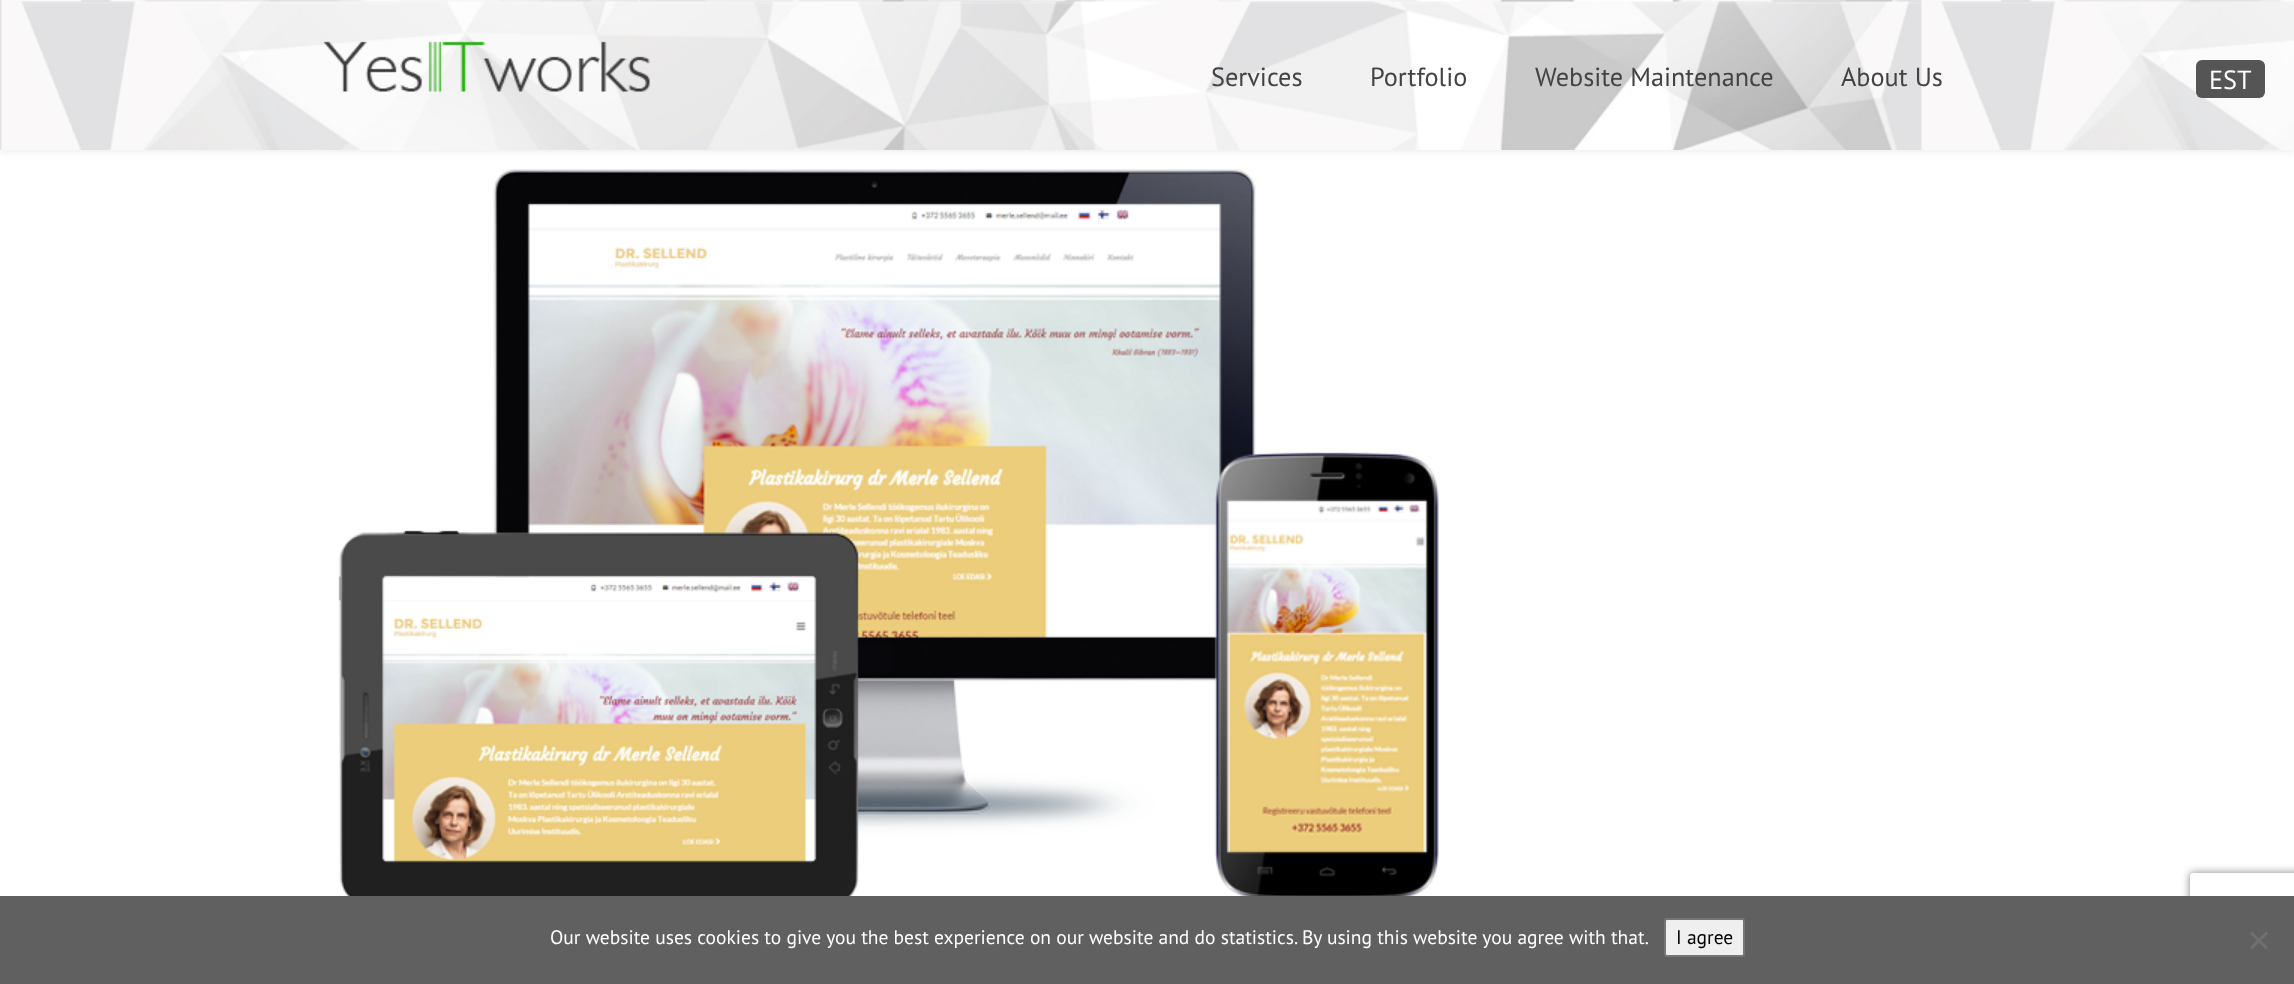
(async () => {
  const canvas = document.querySelector("canvas");
  canvas.width = 2294;
  canvas.height = 984;
  const ctx = canvas.getContext("2d");
  ctx.miterLimit = 4;
  ctx.fontKerning = "normal";
  async function loadImage(src) {
    const img = new Image();
    img.src = src;
    await img.decode();
    return img;
  }
  let path;

  ctx.fillStyle = "#ffffff";
  ctx.fillRect(0, 0, 2294, 984);
  ctx.fillStyle = "rgba(0, 0, 0, 0.07)";
  ctx.filter = "blur(4px)";
  ctx.beginPath();
  ctx.rect(0, 2, 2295, 150);
  ctx.fill();
  ctx.filter = "none";
  ctx.drawImage(await loadImage("img/1.png"), 0, 0, 2294, 150);
  ctx.fillStyle = "rgba(255, 255, 255, 0.15)";
  ctx.fillRect(22, 2, 2033, 2);
  ctx.drawImage(await loadImage("img/2.png"), 323, 41, 327, 51);
  ctx.fillStyle = "#555555";
  ctx.beginPath();
  ctx.roundRect(2196, 60, 69, 38, 6);
  ctx.fill();
  ctx.drawImage(await loadImage("img/3.png"), 338, 169, 1101, 727);
  ctx.save();
  path = new Path2D("M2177 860H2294V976H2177ZM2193 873H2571C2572.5 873 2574 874.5 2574 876V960C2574 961.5 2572.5 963 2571 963H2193C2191.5 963 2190 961.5 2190 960V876C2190 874.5 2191.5 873 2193 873Z");
  ctx.clip(path, "evenodd");
  ctx.fillStyle = "#808080";
  ctx.filter = "blur(4px)";
  ctx.beginPath();
  ctx.roundRect(2190, 873, 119, 90, 3);
  ctx.fill();
  ctx.filter = "none";
  ctx.restore();
  ctx.fillStyle = "#606060";
  ctx.fillRect(0, 896, 2294, 88);
  ctx.fillStyle = "#efefef";
  ctx.beginPath();
  ctx.roundRect(1665, 919, 79, 37, 2);
  ctx.fill();
  ctx.strokeStyle = "#767676";
  ctx.lineWidth = 2;
  ctx.stroke();
  ctx.fillStyle = "#707070";
  path = new Path2D("M2266 931.5L2268 933.5L2252 949.5L2250 947.5Z");
  ctx.fill(path);
  path = new Path2D("M2250 933.5L2252 931.5L2268 947.5L2266 949.5Z");
  ctx.fill(path);
  ctx.font = "26.25px PT Sans";
  ctx.fillStyle = "#434343";
  for (const [text, x, y] of [
    ["Services", 1211, 86],
    ["Portfolio", 1370, 86],
    ["Website Maintenance", 1535, 86],
    ["About Us", 1841, 86],
  ]) {
    ctx.fillText(text, x, y);
  }
  ctx.fillStyle = "#ffffff";
  ctx.fillText("EST", 2209, 89);
  ctx.font = "19.5px PT Sans";
  ctx.fillText("Our website uses cookies to give you the best experience on our website and do statistics. By using this website you agree with that.", 550, 944);
  ctx.fillStyle = "#000000";
  ctx.fillText("I agree", 1676, 944);
})();
